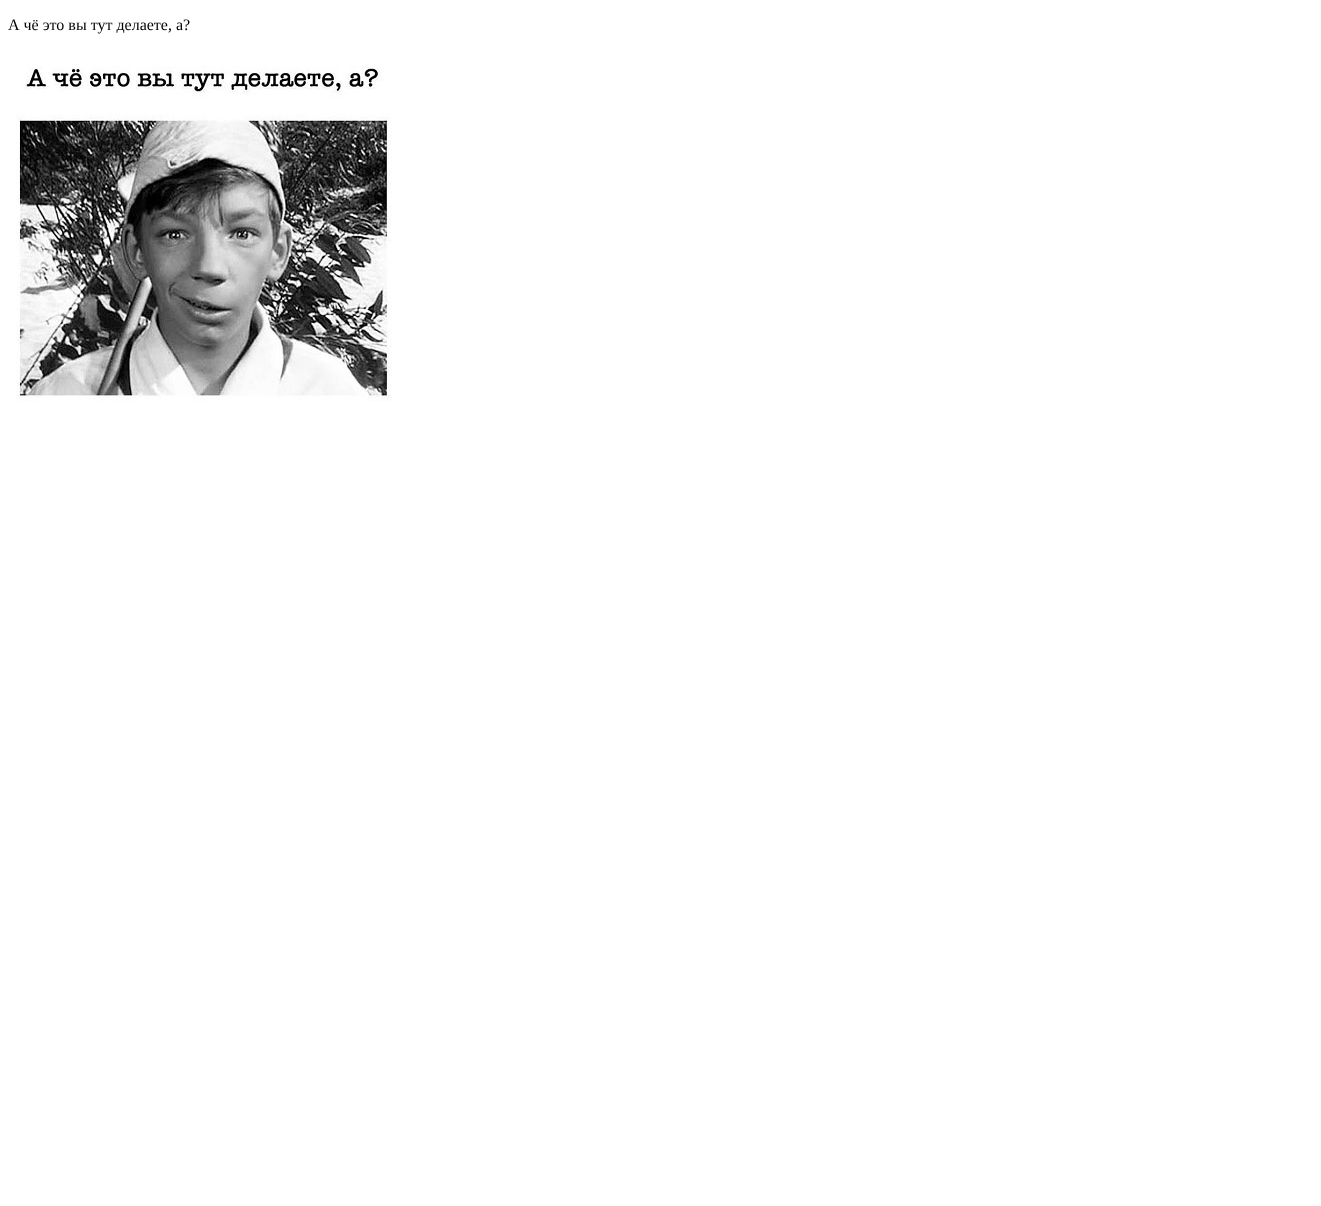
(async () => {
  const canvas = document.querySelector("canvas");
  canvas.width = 1321;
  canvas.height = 1206;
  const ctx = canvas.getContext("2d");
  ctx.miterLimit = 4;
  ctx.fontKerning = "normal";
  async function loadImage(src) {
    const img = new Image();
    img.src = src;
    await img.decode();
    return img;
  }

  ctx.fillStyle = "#ffffff";
  ctx.fillRect(0, 0, 1321, 1206);
  ctx.drawImage(await loadImage("img/1.png"), 16, 66, 376, 336);
  ctx.font = "16px Liberation Serif";
  ctx.fillStyle = "#000000";
  ctx.fillText("А чё это вы тут делаете, а?", 8, 30);
})();
